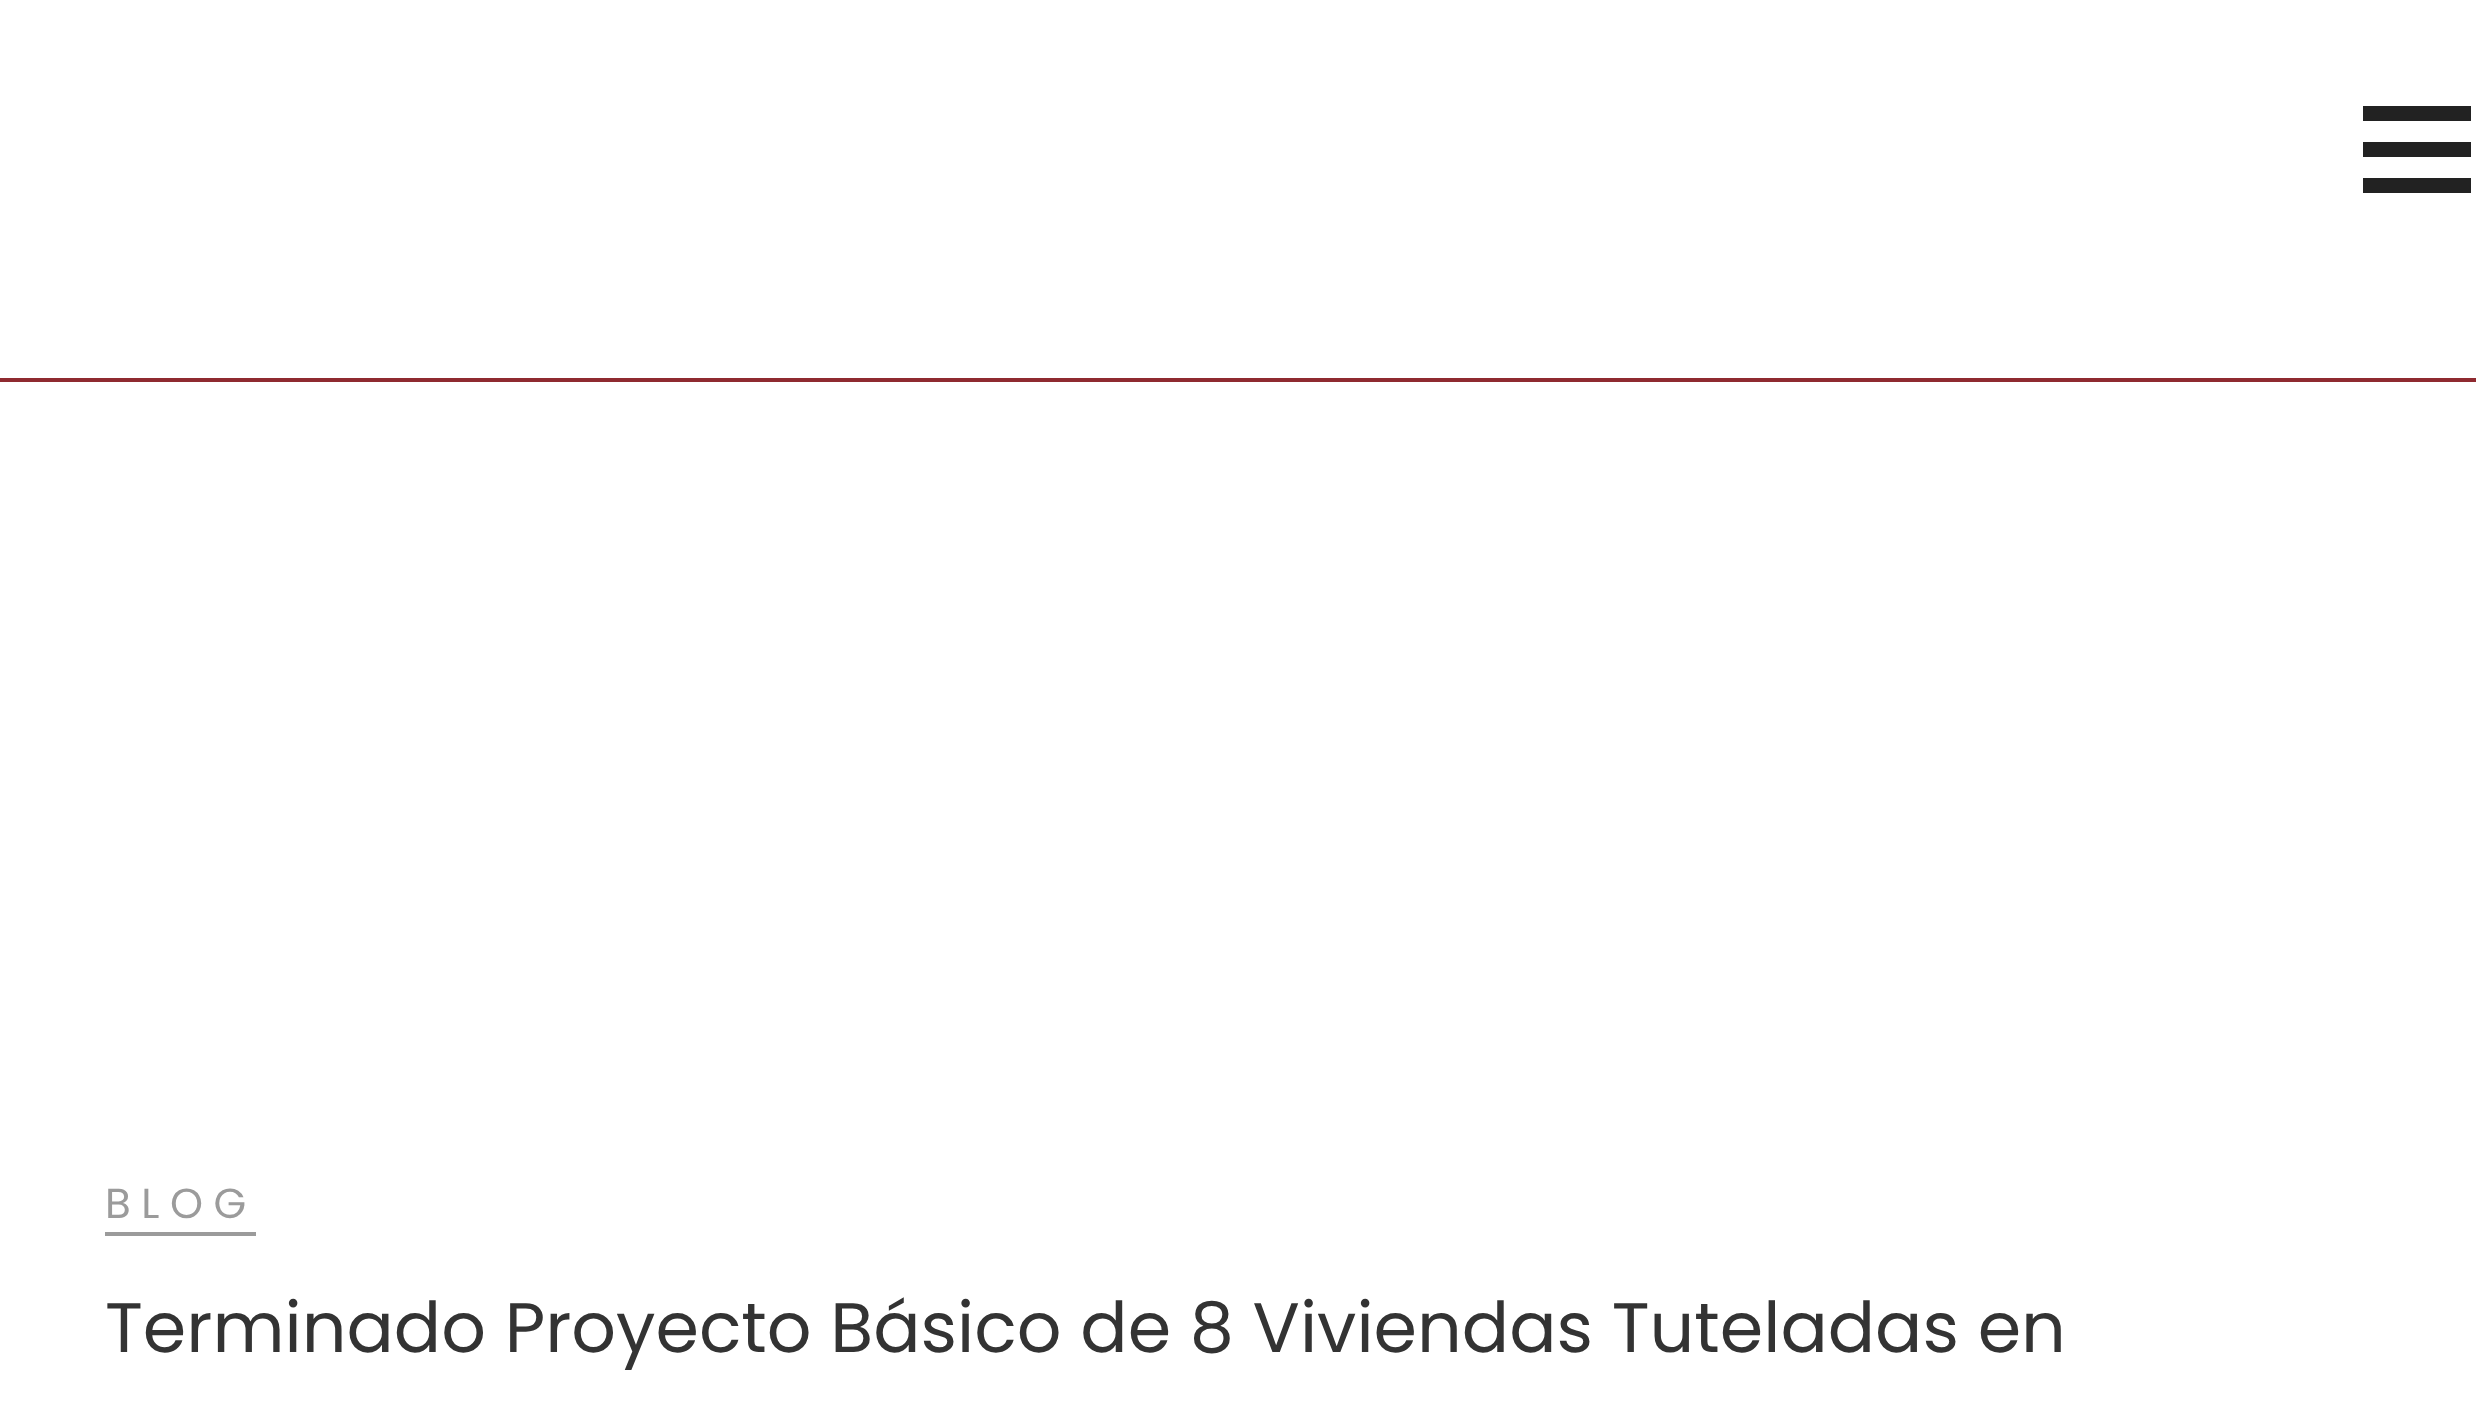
(async () => {
  const canvas = document.querySelector("canvas");
  canvas.width = 2476;
  canvas.height = 1408;
  const ctx = canvas.getContext("2d");
  ctx.miterLimit = 4;
  ctx.fontKerning = "normal";
  let path;

  ctx.fillStyle = "#ffffff";
  ctx.fillRect(0, 0, 2476, 1408);
  ctx.fillStyle = "#8f2a30";
  ctx.fillRect(0, 378, 2476, 4);
  ctx.fillStyle = "#222222";
  path = new Path2D("M2471 106V121H2363V106ZM2363 157H2471V142H2363ZM2363 193H2471V178H2363Z");
  ctx.fill(path);
  ctx.fillStyle = "#9b9b9b";
  ctx.fillRect(105, 1232, 151, 4);
  ctx.letterSpacing = "10.5px";
  ctx.font = "42px Poppins";
  ctx.fillText("BLOG", 105, 1218);
  ctx.letterSpacing = "0px";
  ctx.font = "70px Poppins";
  ctx.fillStyle = "#333333";
  ctx.fillText("Terminado Proyecto Básico de 8 Viviendas Tuteladas en", 105, 1352);
})();
